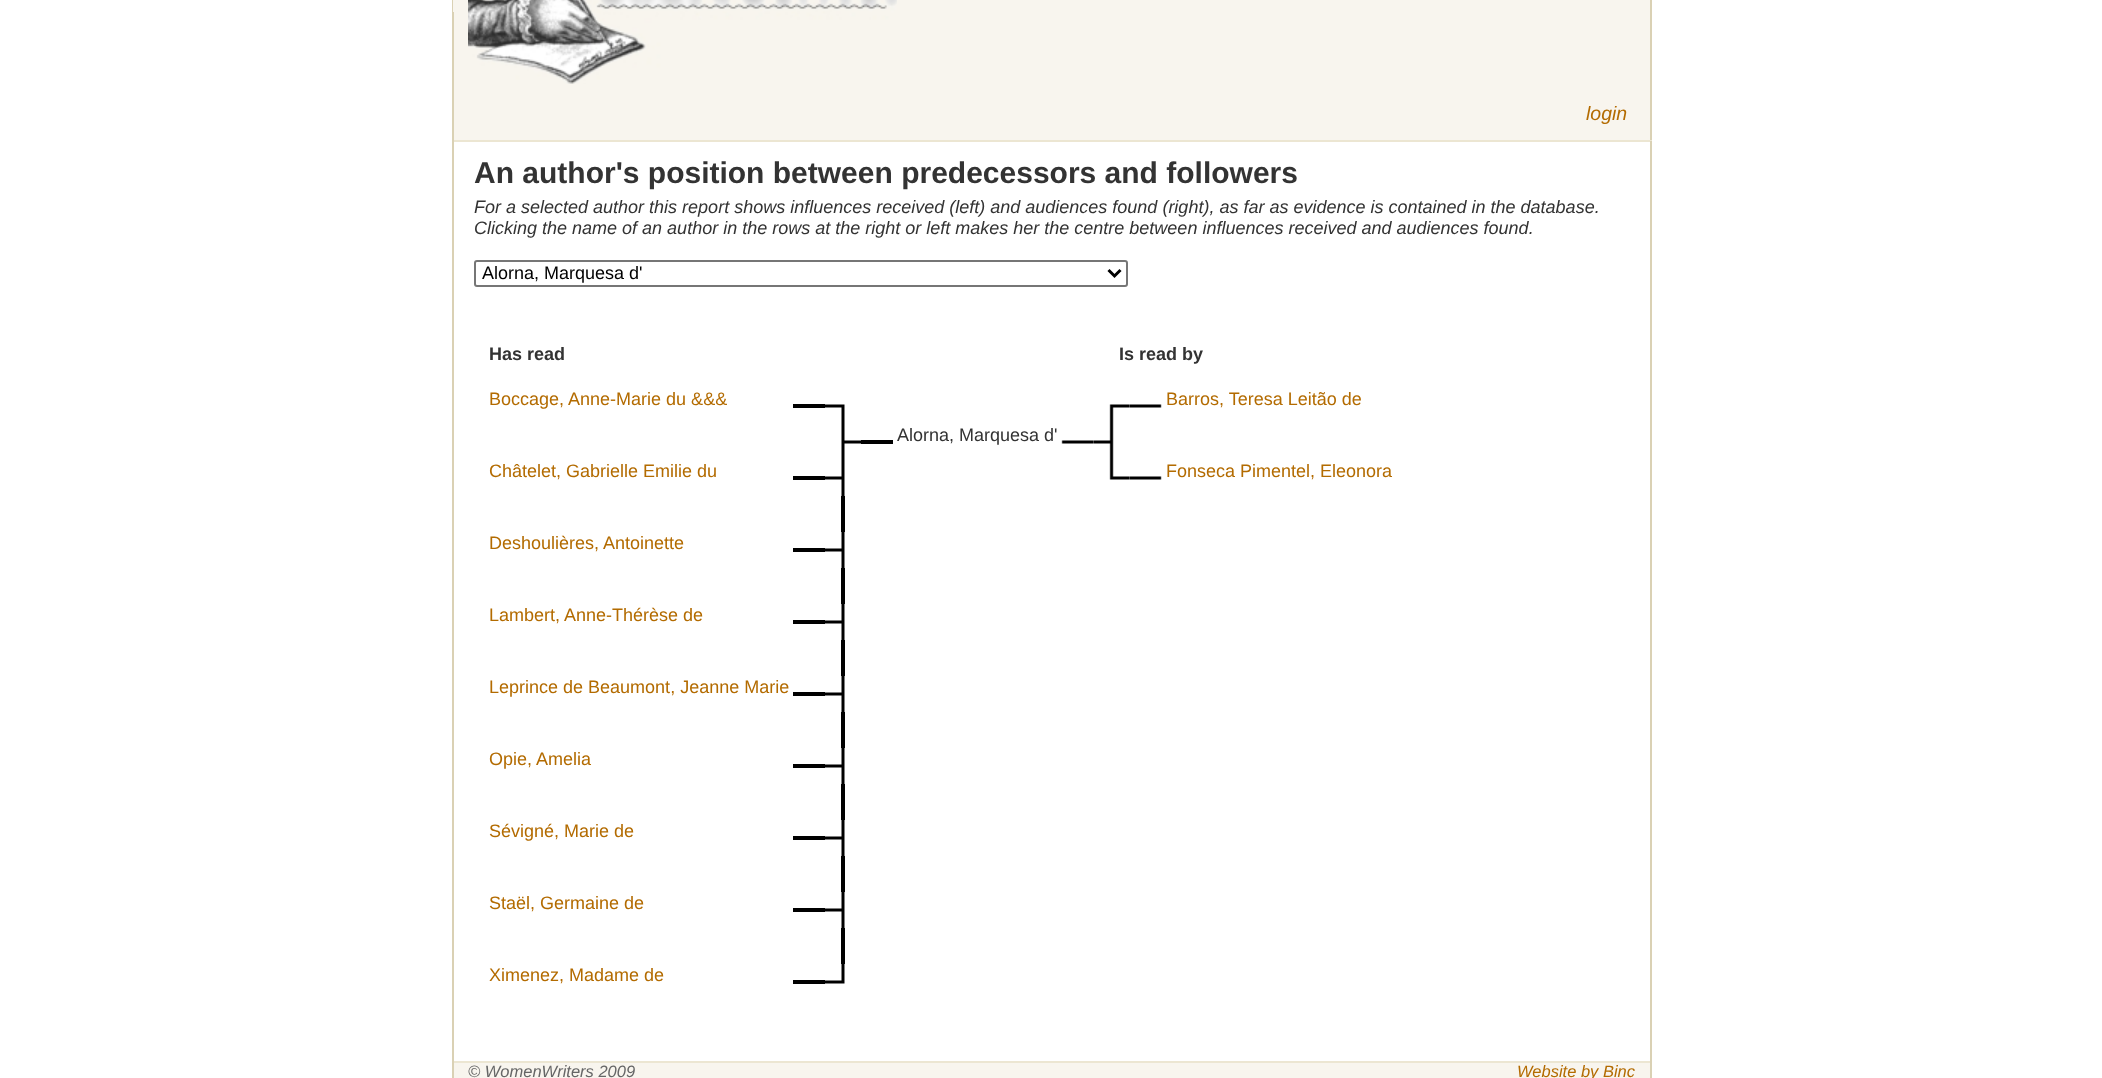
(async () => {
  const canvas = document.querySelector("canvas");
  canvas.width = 2102;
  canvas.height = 1078;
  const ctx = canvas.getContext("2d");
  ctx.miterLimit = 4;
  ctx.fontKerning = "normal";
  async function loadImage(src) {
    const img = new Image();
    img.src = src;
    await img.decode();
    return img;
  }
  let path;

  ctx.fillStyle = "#ffffff";
  ctx.fillRect(0, 0, 2102, 1078);
  for (const [x, y, w, h, color] of [
    [454, 0, 1196, 140, "#f8f5ee"],
    [1650, 0, 2, 141, "#dad1b4"],
    [452, 140, 1200, 2, "#ece6d2"],
    [452, 0, 2, 1061, "#dad1b4"],
    [453, 0, 1, 12, "#f8f5ee"],
  ]) {
    ctx.fillStyle = color;
    ctx.fillRect(x, y, w, h);
  }
  ctx.drawImage(await loadImage("img/1.png"), 468, 0, 429, 84);
  ctx.fillStyle = "#dad1b4";
  ctx.fillRect(1650, 141, 2, 920);
  ctx.beginPath();
  ctx.roundRect(475, 261, 652, 25, 2);
  ctx.strokeStyle = "#767676";
  ctx.lineWidth = 2;
  ctx.stroke();
  path = new Path2D("M1108.5 270L1114.5 276L1120.5 270");
  ctx.strokeStyle = "#000000";
  ctx.lineWidth = 3;
  ctx.stroke(path);
  ctx.fillStyle = "#000000";
  ctx.fillRect(793, 404, 32, 4);
  ctx.drawImage(await loadImage("img/2.png"), 825, 404, 20, 20);
  ctx.drawImage(await loadImage("img/3.png"), 841, 424, 20, 36);
  ctx.fillRect(793, 476, 32, 4);
  ctx.drawImage(await loadImage("img/4.png"), 825, 460, 20, 36);
  ctx.fillRect(841, 496, 4, 36);
  ctx.fillRect(793, 548, 32, 4);
  ctx.drawImage(await loadImage("img/4.png"), 825, 532, 20, 36);
  ctx.fillRect(841, 568, 4, 36);
  ctx.fillRect(793, 620, 32, 4);
  ctx.drawImage(await loadImage("img/4.png"), 825, 604, 20, 36);
  ctx.fillRect(841, 640, 4, 36);
  ctx.fillRect(793, 692, 32, 4);
  ctx.drawImage(await loadImage("img/4.png"), 825, 676, 20, 36);
  ctx.fillRect(841, 712, 4, 36);
  ctx.fillRect(793, 764, 32, 4);
  ctx.drawImage(await loadImage("img/4.png"), 825, 748, 20, 36);
  ctx.fillRect(841, 784, 4, 36);
  ctx.fillRect(793, 836, 32, 4);
  ctx.drawImage(await loadImage("img/4.png"), 825, 820, 20, 36);
  ctx.fillRect(841, 856, 4, 36);
  ctx.fillRect(793, 908, 32, 4);
  ctx.drawImage(await loadImage("img/4.png"), 825, 892, 20, 36);
  ctx.fillRect(841, 928, 4, 36);
  ctx.fillRect(793, 980, 32, 4);
  ctx.drawImage(await loadImage("img/5.png"), 825, 964, 20, 20);
  ctx.fillRect(861, 440, 32, 4);
  ctx.drawImage(await loadImage("img/6.png"), 1061, 440, 33, 4);
  ctx.drawImage(await loadImage("img/7.png"), 1109, 404, 21, 20);
  ctx.drawImage(await loadImage("img/8.png"), 1129, 404, 33, 4);
  ctx.drawImage(await loadImage("img/9.png"), 1093, 424, 21, 36);
  ctx.drawImage(await loadImage("img/10.png"), 1109, 460, 21, 20);
  ctx.drawImage(await loadImage("img/8.png"), 1129, 476, 33, 4);
  for (const [x, y, w, h, color] of [
    [454, 1063, 1196, 15, "#f8f5ee"],
    [452, 1061, 1200, 2, "#ece6d2"],
    [1650, 1061, 2, 17, "#dad1b4"],
    [452, 1061, 2, 17, "#dad1b4"],
  ]) {
    ctx.fillStyle = color;
    ctx.fillRect(x, y, w, h);
  }
  ctx.font = "italic 19.5px Liberation Sans";
  ctx.fillStyle = "#b36b00";
  ctx.fillText("login", 1586, 120);
  ctx.font = "bold 30px Liberation Sans";
  ctx.fillStyle = "#333333";
  ctx.fillText("An author's position between predecessors and followers", 474, 183);
  ctx.font = "italic 18px Liberation Sans";
  ctx.fillText("For a selected author this report shows influences received (left) and audiences found (right), as far as evidence is contained in the database.", 474, 213);
  ctx.fillText("Clicking the name of an author in the rows at the right or left makes her the centre between influences received and audiences found.", 474, 234);
  ctx.font = "18px Liberation Sans";
  ctx.fillStyle = "#000000";
  ctx.fillText("Alorna, Marquesa d'", 482, 279);
  ctx.font = "bold 18px Liberation Sans";
  ctx.fillStyle = "#333333";
  ctx.fillText("Has read", 489, 360);
  ctx.fillText("Is read by", 1119, 360);
  ctx.font = "18px Liberation Sans";
  ctx.fillStyle = "#b36b00";
  for (const [text, x, y] of [
    ["Boccage, Anne-Marie du &&&", 489, 405],
    ["Châtelet, Gabrielle Emilie du", 489, 477],
    ["Deshoulières, Antoinette", 489, 549],
    ["Lambert, Anne-Thérèse de", 489, 621],
    ["Leprince de Beaumont, Jeanne Marie", 489, 693],
    ["Opie,", 489, 765],
    ["Amelia", 536, 765],
    ["Sévigné, Marie de", 489, 837],
    ["Staël, Germaine de", 489, 909],
    ["Ximenez, Madame de", 489, 981],
  ]) {
    ctx.fillText(text, x, y);
  }
  ctx.fillStyle = "#333333";
  ctx.fillText("Alorna, Marquesa d'", 897, 441);
  ctx.fillStyle = "#b36b00";
  ctx.fillText("Barros, Teresa Leitão de", 1166, 405);
  ctx.fillText("Fonseca Pimentel, Eleonora", 1166, 477);
  ctx.font = "italic 16.5px Liberation Sans";
  ctx.fillStyle = "#666666";
  ctx.fillText("© WomenWriters 2009", 468, 1077);
  ctx.fillStyle = "#b36b00";
  ctx.fillText("Website by Binc", 1517, 1077);
})();
